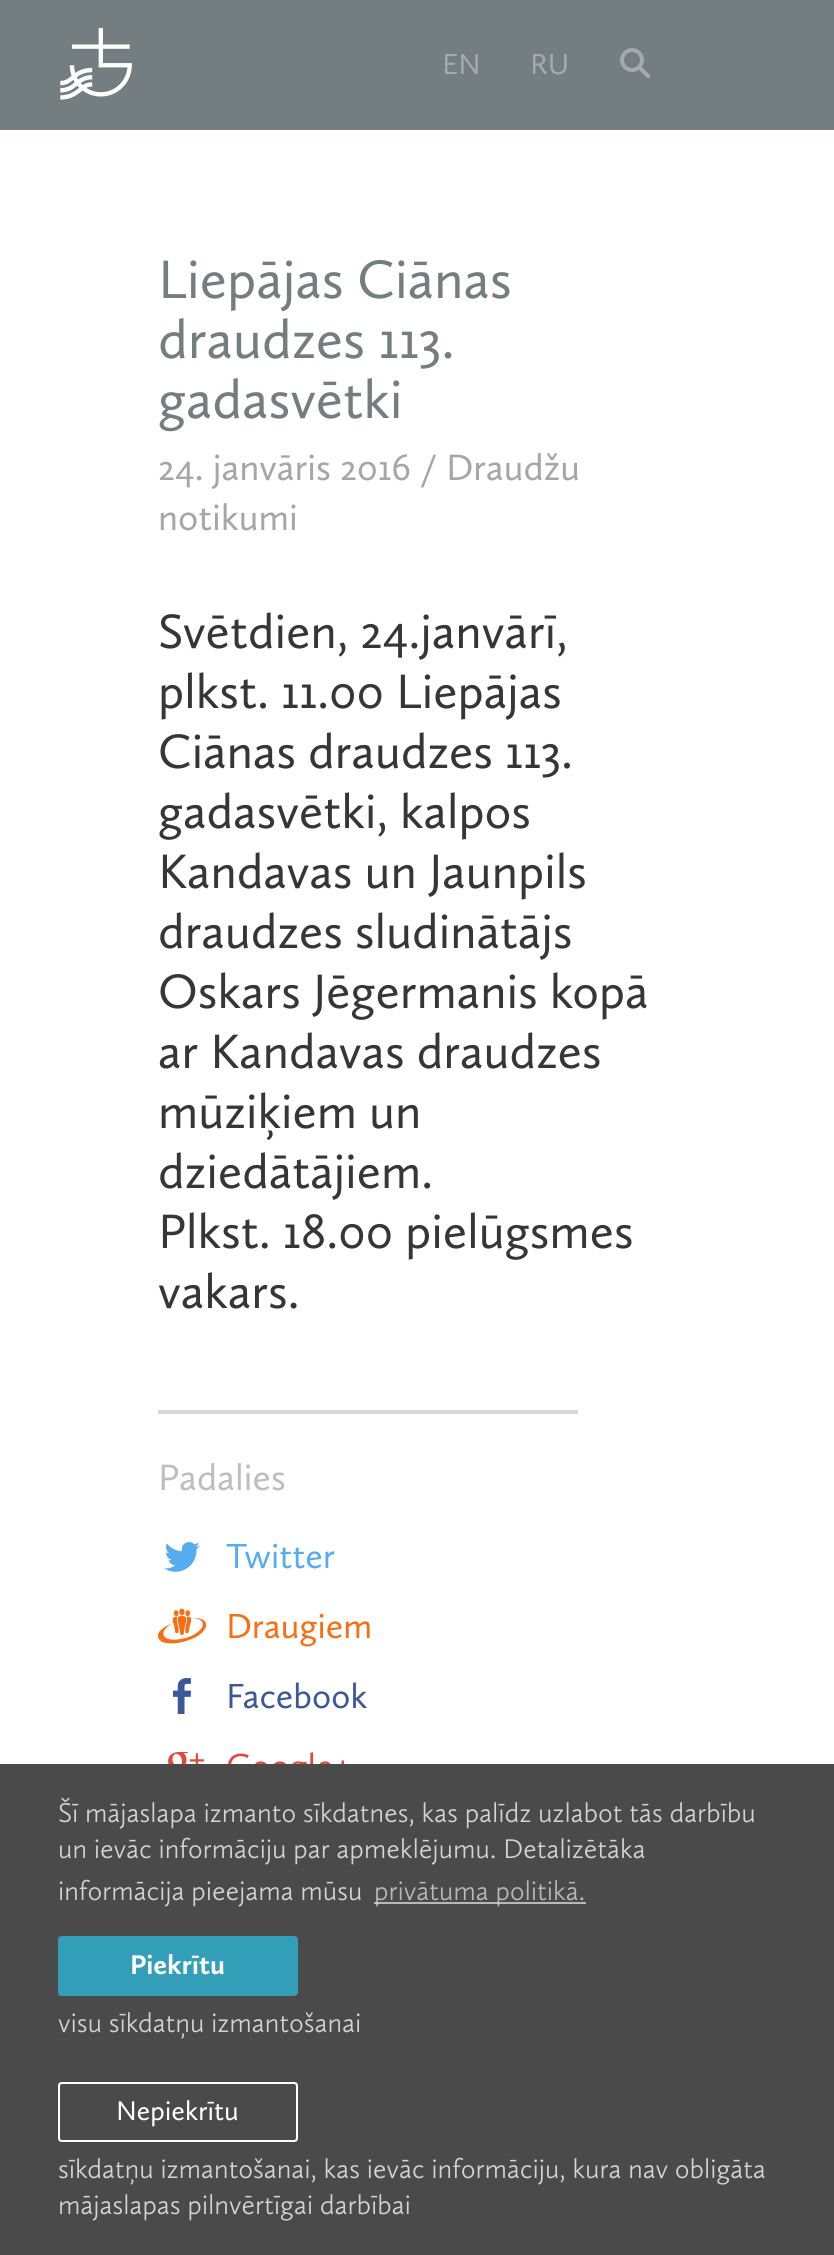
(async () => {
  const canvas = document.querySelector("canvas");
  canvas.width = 834;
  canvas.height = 2255;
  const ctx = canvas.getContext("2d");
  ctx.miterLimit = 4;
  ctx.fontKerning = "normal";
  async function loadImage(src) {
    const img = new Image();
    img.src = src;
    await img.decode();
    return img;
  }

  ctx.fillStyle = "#ffffff";
  ctx.fillRect(0, 0, 834, 2255);
  ctx.fillStyle = "#747e80";
  ctx.fillRect(0, 0, 834, 130);
  ctx.drawImage(await loadImage("img/1.png"), 60, 28, 72, 72);
  ctx.drawImage(await loadImage("img/2.png"), 445, 54, 33, 20);
  ctx.drawImage(await loadImage("img/3.png"), 533, 54, 34, 21);
  ctx.drawImage(await loadImage("img/4.png"), 620, 48, 30, 30);
  ctx.drawImage(await loadImage("img/5.png"), 163, 260, 347, 52);
  ctx.drawImage(await loadImage("img/6.png"), 160, 318, 292, 51);
  ctx.drawImage(await loadImage("img/7.png"), 159, 378, 241, 54);
  ctx.drawImage(await loadImage("img/8.png"), 159, 454, 277, 35);
  ctx.drawImage(await loadImage("img/9.png"), 449, 452, 129, 29);
  ctx.drawImage(await loadImage("img/10.png"), 160, 502, 136, 29);
  ctx.drawImage(await loadImage("img/11.png"), 160, 612, 405, 48);
  ctx.drawImage(await loadImage("img/12.png"), 161, 672, 399, 48);
  ctx.drawImage(await loadImage("img/13.png"), 160, 732, 410, 46);
  ctx.drawImage(await loadImage("img/14.png"), 159, 792, 370, 48);
  ctx.drawImage(await loadImage("img/15.png"), 162, 852, 423, 48);
  ctx.drawImage(await loadImage("img/16.png"), 160, 912, 411, 48);
  ctx.drawImage(await loadImage("img/17.png"), 160, 972, 487, 48);
  ctx.drawImage(await loadImage("img/18.png"), 159, 1032, 441, 37);
  ctx.drawImage(await loadImage("img/19.png"), 161, 1092, 257, 49);
  ctx.drawImage(await loadImage("img/20.png"), 160, 1152, 271, 48);
  ctx.drawImage(await loadImage("img/21.png"), 162, 1212, 470, 48);
  ctx.drawImage(await loadImage("img/22.png"), 159, 1272, 138, 37);
  ctx.fillStyle = "#d7d7d7";
  ctx.fillRect(158, 1410, 420, 4);
  ctx.drawImage(await loadImage("img/23.png"), 161, 1463, 124, 28);
  ctx.drawImage(await loadImage("img/24.png"), 164, 1542, 36, 30);
  ctx.drawImage(await loadImage("img/25.png"), 226, 1543, 109, 26);
  ctx.drawImage(await loadImage("img/26.png"), 158, 1608, 48, 36);
  ctx.drawImage(await loadImage("img/27.png"), 229, 1613, 141, 34);
  ctx.drawImage(await loadImage("img/28.png"), 173, 1678, 18, 36);
  ctx.drawImage(await loadImage("img/29.png"), 229, 1682, 138, 27);
  ctx.drawImage(await loadImage("img/30.png"), 168, 1752, 36, 12);
  ctx.drawImage(await loadImage("img/31.png"), 228, 1752, 116, 12);
  ctx.fillStyle = "#4a4a4a";
  ctx.fillRect(0, 1764, 834, 491);
  ctx.drawImage(await loadImage("img/32.png"), 59, 1797, 695, 32);
  ctx.drawImage(await loadImage("img/33.png"), 60, 1837, 585, 28);
  ctx.drawImage(await loadImage("img/34.png"), 59, 1879, 302, 28);
  ctx.fillStyle = "#b8b8b8";
  ctx.fillRect(374, 1902, 212, 2);
  ctx.drawImage(await loadImage("img/35.png"), 376, 1880, 208, 27);
  ctx.fillStyle = "#329eb7";
  ctx.beginPath();
  ctx.roundRect(58, 1936, 240, 60, 4);
  ctx.fill();
  ctx.drawImage(await loadImage("img/36.png"), 132, 1954, 92, 21);
  ctx.drawImage(await loadImage("img/37.png"), 58, 2012, 302, 27);
  ctx.beginPath();
  ctx.roundRect(59, 2083, 238, 58, 3);
  ctx.strokeStyle = "#ffffff";
  ctx.lineWidth = 2;
  ctx.stroke();
  ctx.drawImage(await loadImage("img/38.png"), 118, 2100, 119, 27);
  ctx.drawImage(await loadImage("img/39.png"), 59, 2157, 706, 28);
  ctx.drawImage(await loadImage("img/40.png"), 60, 2194, 350, 27);
})();
